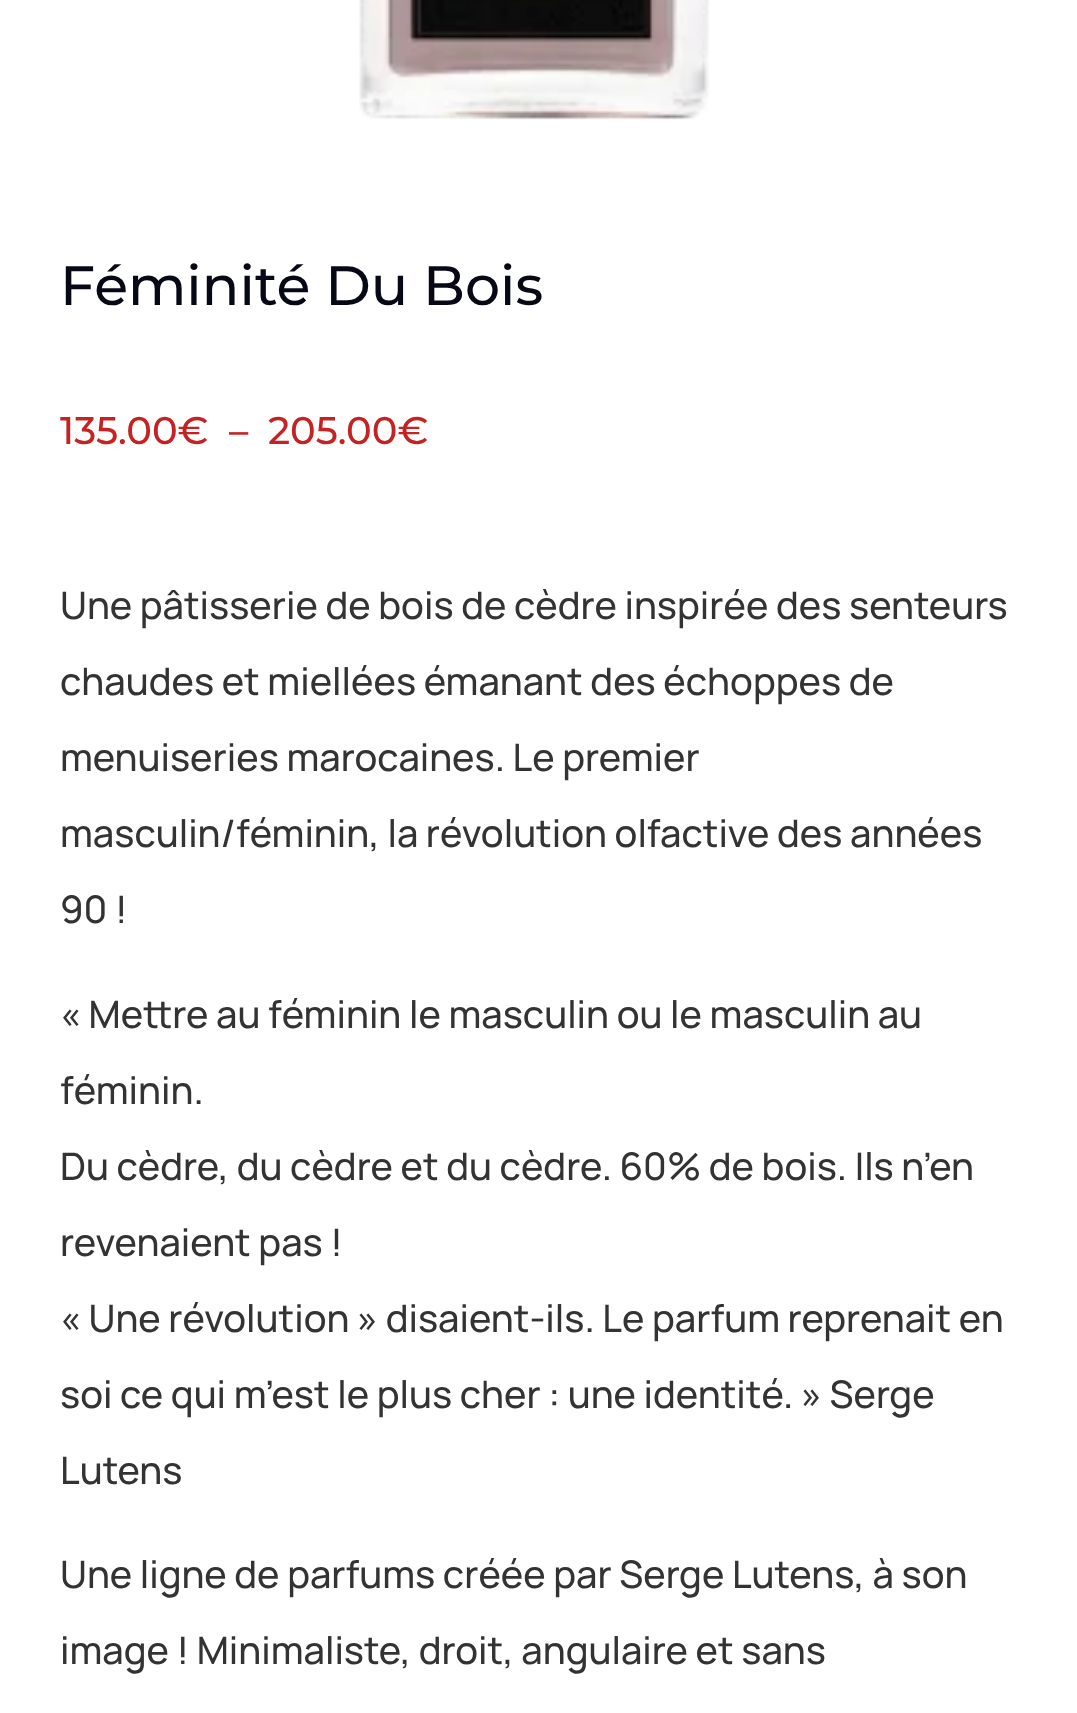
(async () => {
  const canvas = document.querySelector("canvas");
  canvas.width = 1077;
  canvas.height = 1713;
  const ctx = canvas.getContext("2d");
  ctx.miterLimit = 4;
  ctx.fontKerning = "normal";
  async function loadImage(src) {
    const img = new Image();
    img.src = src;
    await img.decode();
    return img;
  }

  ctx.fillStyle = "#ffffff";
  ctx.fillRect(0, 0, 1077, 1713);
  ctx.drawImage(await loadImage("img/1.png"), 359, 0, 351, 120);
  ctx.font = "500 55.25px Montserrat";
  ctx.fillStyle = "#060815";
  ctx.fillText("Féminité Du Bois", 60, 305);
  ctx.font = "500 38.5px Montserrat";
  ctx.fillStyle = "#c52323";
  for (const [text, x, y] of [
    ["135.00€", 60, 444],
    ["–", 229, 444],
    ["205.00€", 268, 444],
  ]) {
    ctx.fillText(text, x, y);
  }
  ctx.font = "500 38px Manrope";
  ctx.fillStyle = "#333333";
  for (const [text, x, y] of [
    ["Une pâtisserie de bois de cèdre inspirée des senteurs", 60, 619],
    ["chaudes et miellées émanant des échoppes de", 60, 695],
    ["menuiseries marocaines. Le premier", 60, 771],
    ["masculin/féminin, la révolution olfactive des années", 60, 847],
    ["90 !", 60, 923],
    ["« Mettre au féminin le masculin ou le masculin au", 60, 1028],
    ["féminin.", 60, 1104],
    ["Du cèdre, du cèdre et du cèdre. 60% de bois. Ils n’en", 60, 1180],
    ["revenaient pas !", 60, 1256],
    ["« Une révolution » disaient-ils. Le parfum reprenait en", 60, 1332],
    ["soi ce qui m’est le plus cher : une identité. » Serge", 60, 1408],
    ["Lutens", 60, 1484],
    ["Une ligne de parfums créée par Serge Lutens, à son", 60, 1588],
    ["image ! Minimaliste, droit, angulaire et sans", 60, 1664],
  ]) {
    ctx.fillText(text, x, y);
  }
})();
